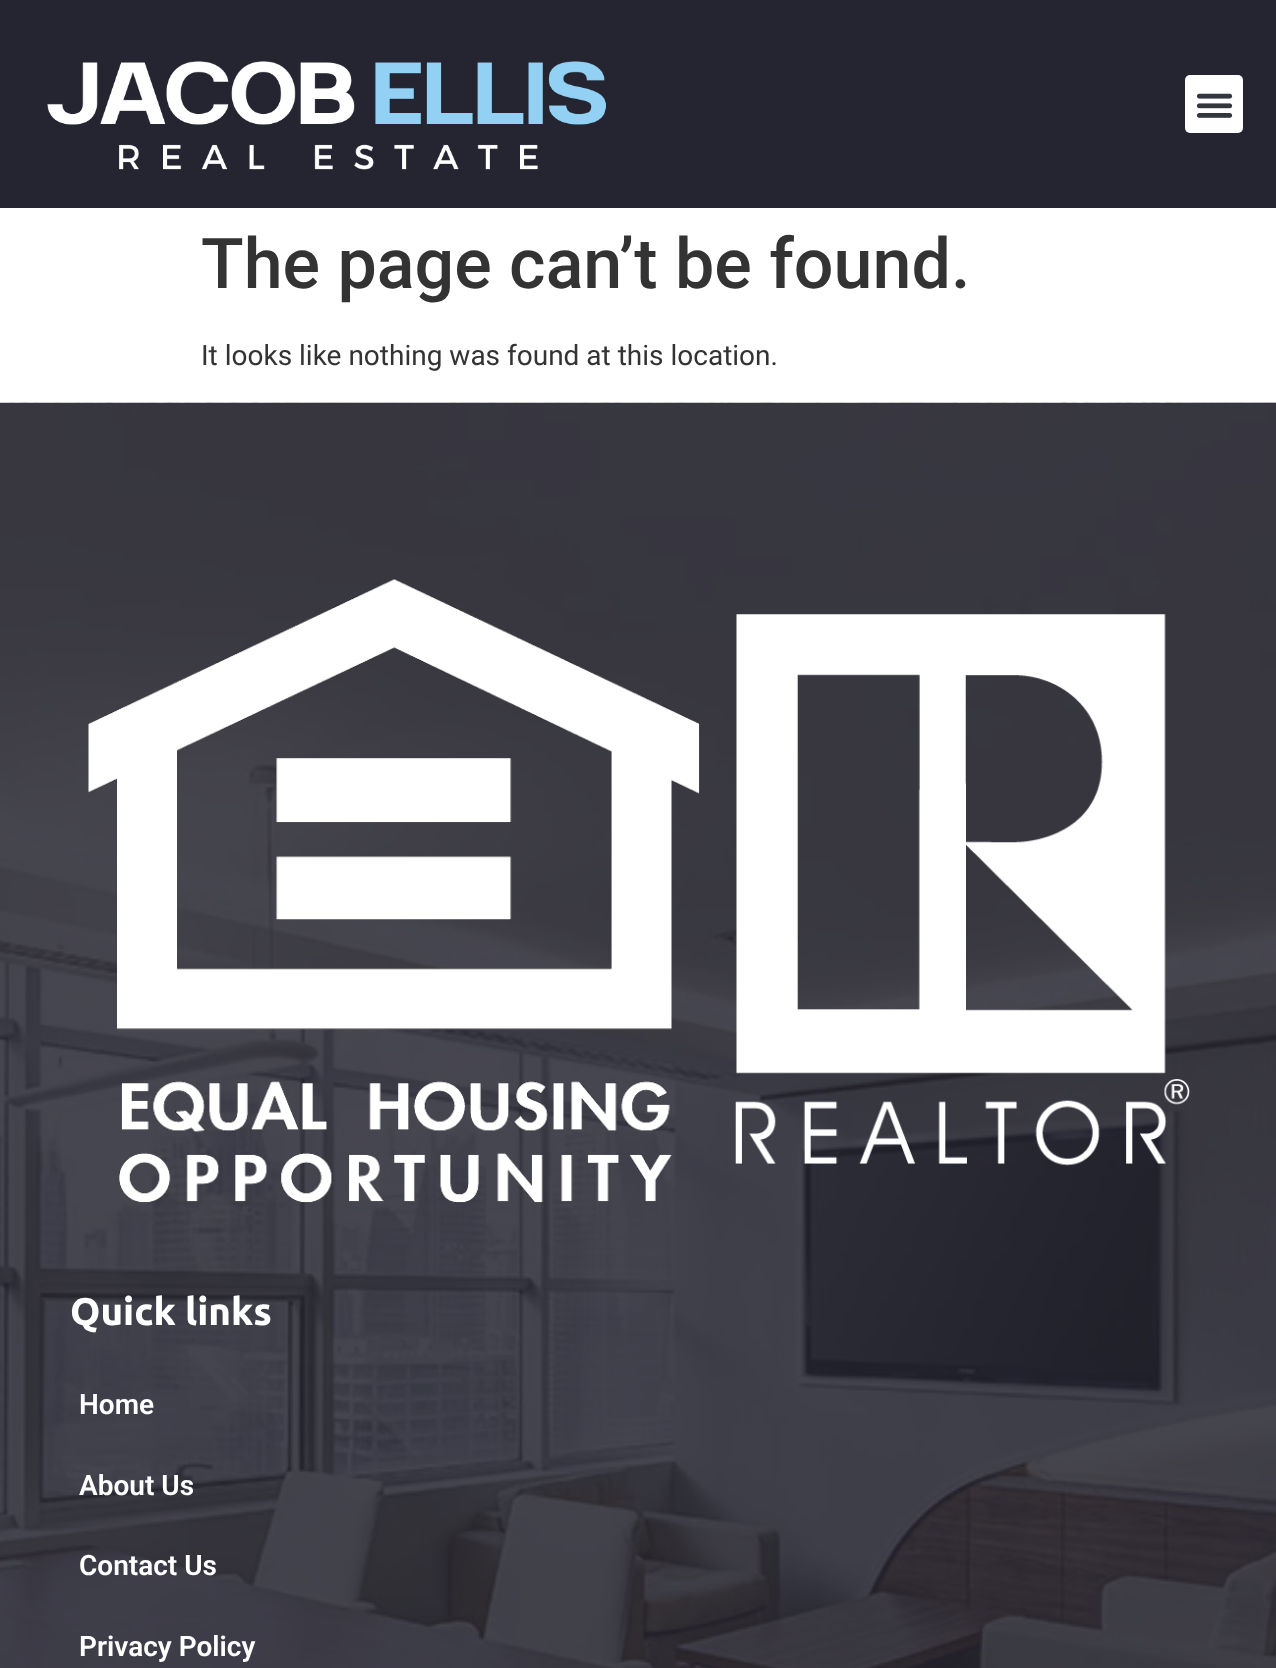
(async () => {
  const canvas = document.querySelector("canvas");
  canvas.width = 1276;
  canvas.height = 1668;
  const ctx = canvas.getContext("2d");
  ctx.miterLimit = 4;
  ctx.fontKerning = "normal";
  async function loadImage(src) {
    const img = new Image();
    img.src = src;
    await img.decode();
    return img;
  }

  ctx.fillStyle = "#ffffff";
  ctx.fillRect(0, 0, 1276, 1668);
  ctx.fillStyle = "#252531";
  ctx.fillRect(0, 0, 1276, 208);
  ctx.drawImage(await loadImage("img/1.png"), 47, 61, 559, 109);
  ctx.fillStyle = "#ffffff";
  ctx.beginPath();
  ctx.roundRect(1185, 75, 58, 58, 5);
  ctx.fill();
  ctx.drawImage(await loadImage("img/2.png"), 1196, 93, 37, 25);
  ctx.drawImage(await loadImage("img/3.png"), 0, 402, 1276, 1266);
  ctx.drawImage(await loadImage("img/4.png"), 88, 578, 612, 625);
  ctx.drawImage(await loadImage("img/5.png"), 735, 614, 455, 552);
  ctx.font = "500 70px Roboto";
  ctx.fillStyle = "#333333";
  ctx.fillText("The page can’t be found.", 201, 288);
  ctx.font = "28px Roboto";
  ctx.fillText("It looks like nothing was found at this location.", 201, 365);
  ctx.font = "bold 38.5px Ubuntu";
  ctx.fillStyle = "#ffffff";
  ctx.fillText("Quick links", 70, 1325);
  ctx.font = "600 28px Roboto";
  for (const [text, x, y] of [
    ["Home", 79, 1414],
    ["About Us", 79, 1495],
    ["Contact Us", 79, 1575],
    ["Privacy Policy", 79, 1656],
  ]) {
    ctx.fillText(text, x, y);
  }
})();
